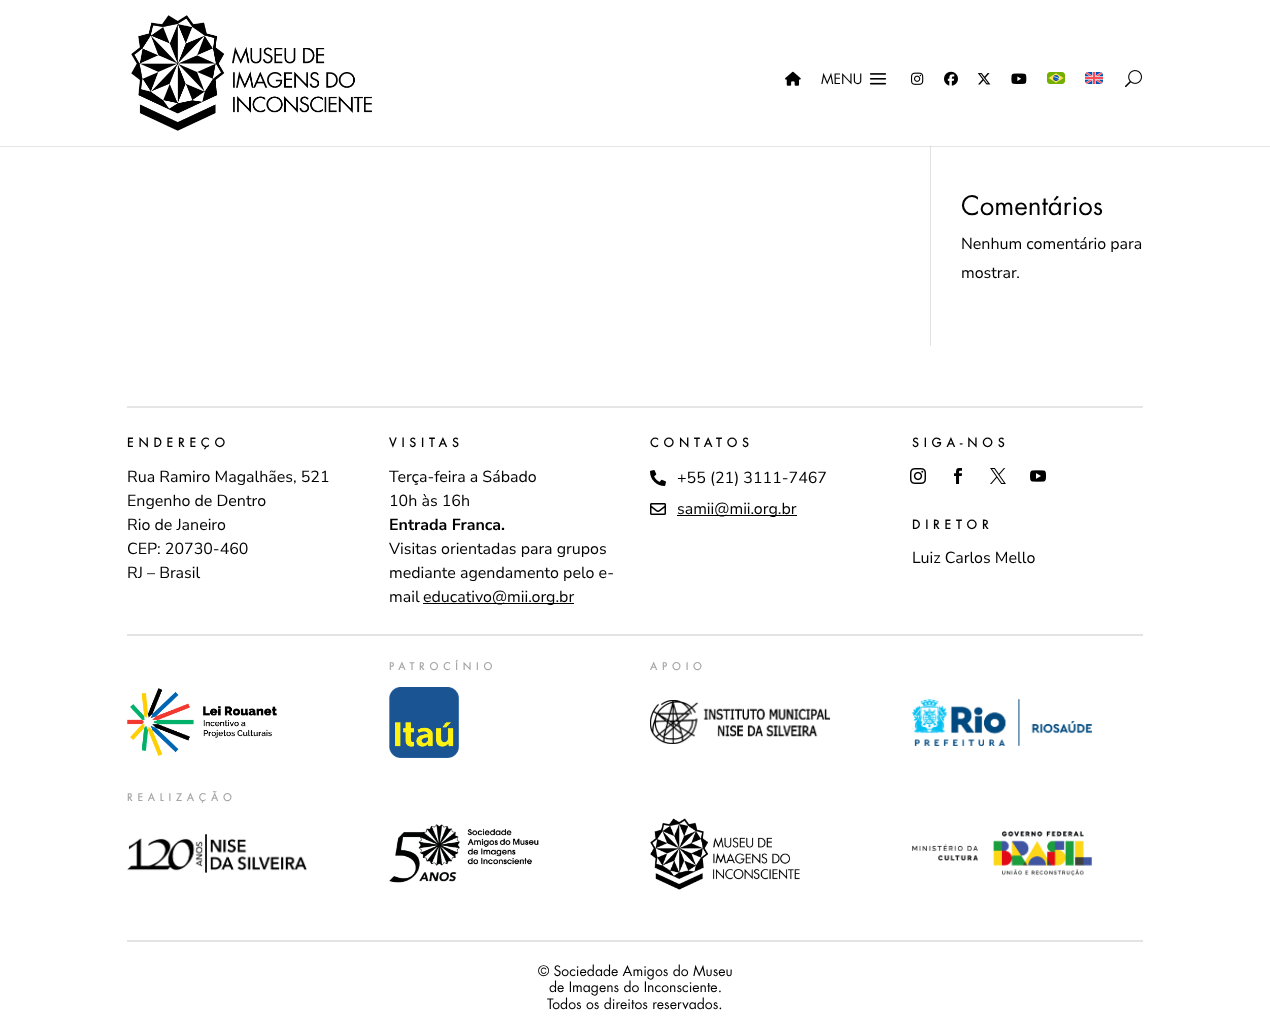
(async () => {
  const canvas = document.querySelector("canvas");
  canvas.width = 1270;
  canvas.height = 1017;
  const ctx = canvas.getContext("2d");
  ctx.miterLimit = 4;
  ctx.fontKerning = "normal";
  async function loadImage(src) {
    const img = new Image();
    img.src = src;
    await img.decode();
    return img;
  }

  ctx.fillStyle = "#ffffff";
  ctx.fillRect(0, 0, 1270, 1017);
  ctx.fillStyle = "#e2e2e2";
  ctx.fillRect(930, 146, 1, 200);
  ctx.fillStyle = "rgba(0, 0, 0, 0.1)";
  ctx.fillRect(0, 146, 1270, 1);
  ctx.drawImage(await loadImage("img/1.png"), 131, 15, 241, 116);
  ctx.drawImage(await loadImage("img/2.png"), 785, 71, 16, 15);
  ctx.drawImage(await loadImage("img/3.png"), 869, 73, 18, 12);
  ctx.drawImage(await loadImage("img/4.png"), 911, 72, 13, 13);
  ctx.drawImage(await loadImage("img/5.png"), 944, 71, 14, 15);
  ctx.drawImage(await loadImage("img/6.png"), 977, 73, 14, 12);
  ctx.drawImage(await loadImage("img/7.png"), 1011, 73, 16, 11);
  ctx.drawImage(await loadImage("img/8.png"), 1047, 72, 18, 12);
  ctx.drawImage(await loadImage("img/9.png"), 1085, 72, 18, 12);
  ctx.drawImage(await loadImage("img/10.png"), 1125, 70, 17, 18);
  ctx.fillStyle = "#e6e6e6";
  ctx.fillRect(127, 406, 1016, 2);
  ctx.fillStyle = "#000000";
  ctx.fillRect(423, 603, 151, 1);
  ctx.drawImage(await loadImage("img/11.png"), 650, 470, 16, 16);
  ctx.drawImage(await loadImage("img/12.png"), 650, 503, 16, 12);
  ctx.fillRect(677, 515, 120, 1);
  ctx.drawImage(await loadImage("img/13.png"), 910, 468, 16, 16);
  ctx.drawImage(await loadImage("img/14.png"), 954, 468, 8, 16);
  ctx.drawImage(await loadImage("img/15.png"), 990, 468, 16, 16);
  ctx.drawImage(await loadImage("img/16.png"), 1030, 470, 16, 12);
  ctx.fillStyle = "#e3e3e3";
  ctx.fillRect(127, 634, 1016, 2);
  ctx.drawImage(await loadImage("img/17.png"), 127, 688, 150, 68);
  ctx.drawImage(await loadImage("img/18.png"), 389, 687, 70, 71);
  ctx.drawImage(await loadImage("img/19.png"), 650, 700, 180, 44);
  ctx.drawImage(await loadImage("img/20.png"), 912, 699, 180, 47);
  ctx.drawImage(await loadImage("img/21.png"), 127, 834, 180, 39);
  ctx.drawImage(await loadImage("img/22.png"), 389, 824, 150, 59);
  ctx.drawImage(await loadImage("img/23.png"), 650, 818, 150, 72);
  ctx.drawImage(await loadImage("img/24.png"), 912, 831, 180, 45);
  ctx.fillRect(127, 940, 1016, 2);
  ctx.font = "14px Futura";
  ctx.fillStyle = "#000000";
  ctx.fillText("MENU", 821, 84);
  ctx.font = "26px Futura";
  ctx.fillText("Comentários", 961, 215);
  ctx.font = "16px Nunito Sans";
  ctx.fillText("Nenhum comentário para", 961, 249);
  ctx.fillText("mostrar.", 961, 278);
  ctx.letterSpacing = "5px";
  ctx.font = "bold 12px Futura";
  ctx.fillText("ENDEREÇO", 127, 447);
  ctx.letterSpacing = "0px";
  ctx.font = "16px Nunito Sans";
  for (const [text, x, y] of [
    ["Rua Ramiro Magalhães, 521", 127, 482],
    ["Engenho de Dentro", 127, 506],
    ["Rio de Janeiro", 127, 530],
    ["CEP: 20730-460", 127, 554],
    ["RJ – Brasil", 127, 578],
  ]) {
    ctx.fillText(text, x, y);
  }
  ctx.letterSpacing = "5px";
  ctx.font = "bold 12px Futura";
  ctx.fillText("VISITAS", 389, 447);
  ctx.letterSpacing = "0px";
  ctx.font = "16px Nunito Sans";
  ctx.fillText("Terça-feira a Sábado", 389, 482);
  ctx.fillText("10h às 16h", 389, 506);
  ctx.font = "bold 16px Nunito Sans";
  ctx.fillText("Entrada Franca.", 389, 530);
  ctx.font = "16px Nunito Sans";
  for (const [text, x, y] of [
    ["Visitas orientadas para grupos", 389, 554],
    ["mediante agendamento pelo e-", 389, 578],
    ["mail", 389, 602],
    ["educativo@mii.org.br", 423, 602],
  ]) {
    ctx.fillText(text, x, y);
  }
  ctx.letterSpacing = "5px";
  ctx.font = "bold 12px Futura";
  ctx.fillText("CONTATOS", 650, 447);
  ctx.letterSpacing = "0px";
  ctx.font = "16px Nunito Sans";
  ctx.fillText("+55 (21) 3111-7467", 677, 483);
  ctx.fillText("samii@mii.org.br", 677, 514);
  ctx.letterSpacing = "5px";
  ctx.font = "bold 12px Futura";
  ctx.fillText("SIGA-NOS", 912, 447);
  ctx.fillText("DIRETOR", 912, 529);
  ctx.letterSpacing = "0px";
  ctx.font = "16px Nunito Sans";
  ctx.fillText("Luiz Carlos Mello", 912, 563);
  ctx.letterSpacing = "5px";
  ctx.font = "bold 10px Futura";
  ctx.fillStyle = "#a6a6a6";
  for (const [text, x, y] of [
    ["PATROCÍNIO", 389, 670],
    ["APOIO", 650, 670],
    ["REALIZAÇÃO", 127, 801],
  ]) {
    ctx.fillText(text, x, y);
  }
  ctx.letterSpacing = "0px";
  ctx.font = "14px Futura";
  ctx.fillStyle = "#000000";
  for (const [text, x, y] of [
    ["© Sociedade Amigos do Museu", 538, 976],
    ["de Imagens do Inconsciente.", 549, 992],
    ["Todos os direitos reservados.", 547, 1009],
  ]) {
    ctx.fillText(text, x, y);
  }
})();
